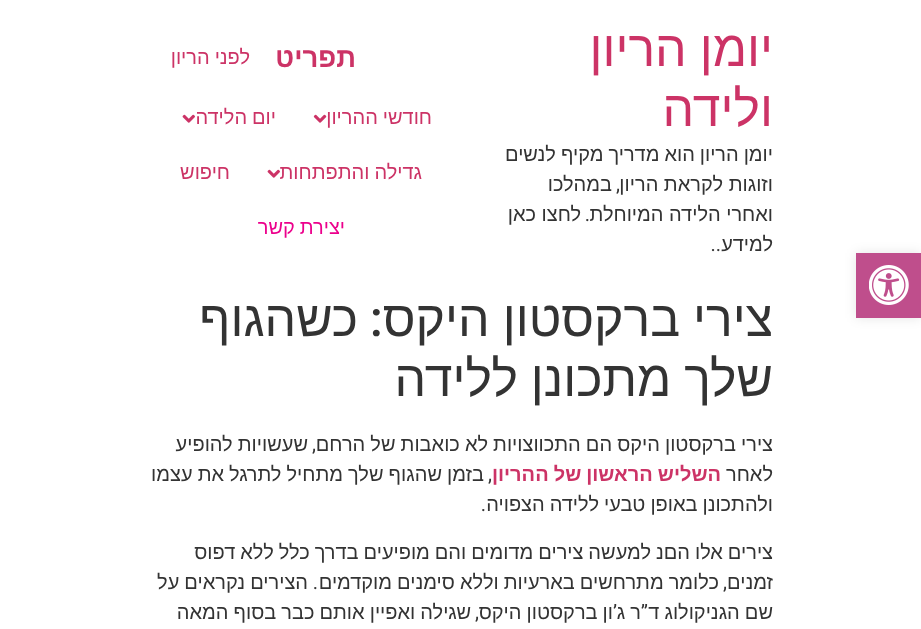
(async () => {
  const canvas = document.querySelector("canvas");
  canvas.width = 921;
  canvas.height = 629;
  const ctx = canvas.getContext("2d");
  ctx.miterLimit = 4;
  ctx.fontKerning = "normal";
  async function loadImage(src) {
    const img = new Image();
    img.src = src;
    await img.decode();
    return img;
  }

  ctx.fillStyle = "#ffffff";
  ctx.fillRect(0, 0, 921, 629);
  ctx.drawImage(await loadImage("img/1.png"), 313, 114, 14, 9);
  ctx.drawImage(await loadImage("img/2.png"), 182, 114, 13, 9);
  ctx.drawImage(await loadImage("img/2.png"), 267, 169, 13, 9);
  ctx.fillStyle = "rgba(0, 0, 0, 0.1)";
  ctx.filter = "blur(6px)";
  ctx.beginPath();
  ctx.rect(856, 253, 65, 65);
  ctx.fill();
  ctx.filter = "none";
  ctx.fillStyle = "#bf4e8c";
  ctx.fillRect(856, 253, 65, 65);
  ctx.drawImage(await loadImage("img/3.png"), 869, 265, 40, 40);
  ctx.wordSpacing = "-1px";
  ctx.direction = "rtl";
  ctx.font = "50px Liberation Sans";
  ctx.fillStyle = "#cc3366";
  ctx.fillText("יומן הריון", 773, 66);
  ctx.wordSpacing = "0px";
  ctx.fillText("ולידה", 773, 126);
  ctx.wordSpacing = "-0.6px";
  ctx.font = "20px Liberation Sans";
  ctx.fillStyle = "#333333";
  ctx.fillText("יומן הריון הוא מדריך מקיף לנשים", 773, 161);
  ctx.wordSpacing = "0px";
  ctx.fillText("וזוגות לקראת הריון", 773, 191);
  ctx.font = "20px Roboto";
  ctx.fillText(",", 620, 191);
  ctx.font = "20px Liberation Sans";
  ctx.fillText("במהלכו", 612, 191);
  ctx.fillText("ואחרי הלידה המיוחלת", 773, 221);
  ctx.font = "20px Roboto";
  ctx.fillText(".", 590, 221);
  ctx.font = "20px Liberation Sans";
  ctx.fillText("לחצו כאן", 581, 221);
  ctx.fillText("למידע", 773, 251);
  ctx.font = "20px Roboto";
  ctx.fillText("..", 721, 251);
  ctx.font = "bold 27.5px Liberation Sans";
  ctx.fillStyle = "#cc3366";
  ctx.fillText("תפריט", 356, 67);
  ctx.wordSpacing = "-0.6px";
  ctx.font = "20px Liberation Sans";
  for (const [text, x, y] of [
    ["לפני הריון", 250, 64],
    ["חודשי ההריון", 432, 124],
    ["יום הלידה", 276, 124],
    ["גדילה והתפתחות", 422, 179],
  ]) {
    ctx.fillText(text, x, y);
  }
  ctx.wordSpacing = "0px";
  ctx.fillText("חיפוש", 230, 179);
  ctx.wordSpacing = "-0.6px";
  ctx.fillStyle = "#ec008c";
  ctx.fillText("יצירת קשר", 345, 234);
  ctx.wordSpacing = "-1px";
  ctx.font = "50px Liberation Sans";
  ctx.fillStyle = "#333333";
  ctx.fillText("צירי ברקסטון היקס", 773, 336);
  ctx.wordSpacing = "0px";
  ctx.font = "500 50px Roboto";
  ctx.fillText(":", 383, 336);
  ctx.font = "50px Liberation Sans";
  ctx.fillText("כשהגוף", 358, 336);
  ctx.wordSpacing = "-1px";
  ctx.fillText("שלך מתכונן ללידה", 773, 396);
  ctx.wordSpacing = "-0.5px";
  ctx.font = "20px Liberation Sans";
  ctx.fillText("צירי ברקסטון היקס הם התכווצויות לא כואבות של הרחם", 773, 451);
  ctx.wordSpacing = "0px";
  ctx.font = "20px Roboto";
  ctx.fillText(",", 316, 451);
  ctx.wordSpacing = "-0.5px";
  ctx.font = "20px Liberation Sans";
  ctx.fillText("שעשויות להופיע", 308, 451);
  ctx.wordSpacing = "0px";
  ctx.fillText("לאחר", 773, 481);
  ctx.wordSpacing = "-0.5px";
  ctx.font = "bold 20px Liberation Sans";
  ctx.fillStyle = "#cc3366";
  ctx.fillText("השליש הראשון של ההריון", 721, 481);
  ctx.wordSpacing = "0px";
  ctx.font = "20px Roboto";
  ctx.fillStyle = "#333333";
  ctx.fillText(",", 492, 481);
  ctx.wordSpacing = "-0.5px";
  ctx.font = "20px Liberation Sans";
  ctx.fillText("בזמן שהגוף שלך מתחיל לתרגל את עצמו", 484, 481);
  ctx.wordSpacing = "-0.6px";
  ctx.fillText("ולהתכונן באופן טבעי ללידה הצפויה", 773, 511);
  ctx.wordSpacing = "0px";
  ctx.font = "20px Roboto";
  ctx.fillText(".", 486, 511);
  ctx.wordSpacing = "-0.6px";
  ctx.font = "20px Liberation Sans";
  ctx.fillText("צירים אלו הםנ למעשה צירים מדומים והם מופיעים בדרך כלל ללא דפוס", 773, 559);
  ctx.wordSpacing = "0px";
  ctx.fillText("זמנים", 773, 589);
  ctx.font = "20px Roboto";
  ctx.fillText(",", 727, 589);
  ctx.wordSpacing = "-0.5px";
  ctx.font = "20px Liberation Sans";
  ctx.fillText("כלומר מתרחשים בארעיות וללא סימנים מוקדמים", 719, 589);
  ctx.wordSpacing = "0px";
  ctx.font = "20px Roboto";
  ctx.fillText(".", 318, 589);
  ctx.wordSpacing = "-0.5px";
  ctx.font = "20px Liberation Sans";
  ctx.fillText("הצירים נקראים על", 308, 589);
  ctx.fillText("שם הגניקולוג ד", 773, 619);
  ctx.wordSpacing = "0px";
  ctx.font = "20px Roboto";
  ctx.fillText("”", 648, 619);
  ctx.wordSpacing = "-0.5px";
  ctx.font = "20px Liberation Sans";
  ctx.fillText("ר ג", 641, 619);
  ctx.wordSpacing = "0px";
  ctx.font = "20px Roboto";
  ctx.fillText("’", 617, 619);
  ctx.wordSpacing = "-0.5px";
  ctx.font = "20px Liberation Sans";
  ctx.fillText("ון ברקסטון היקס", 613, 619);
  ctx.wordSpacing = "0px";
  ctx.font = "20px Roboto";
  ctx.fillText(",", 479, 619);
  ctx.wordSpacing = "-0.5px";
  ctx.font = "20px Liberation Sans";
  ctx.fillText("שגילה ואפיין אותם כבר בסוף המאה", 471, 619);
})();
